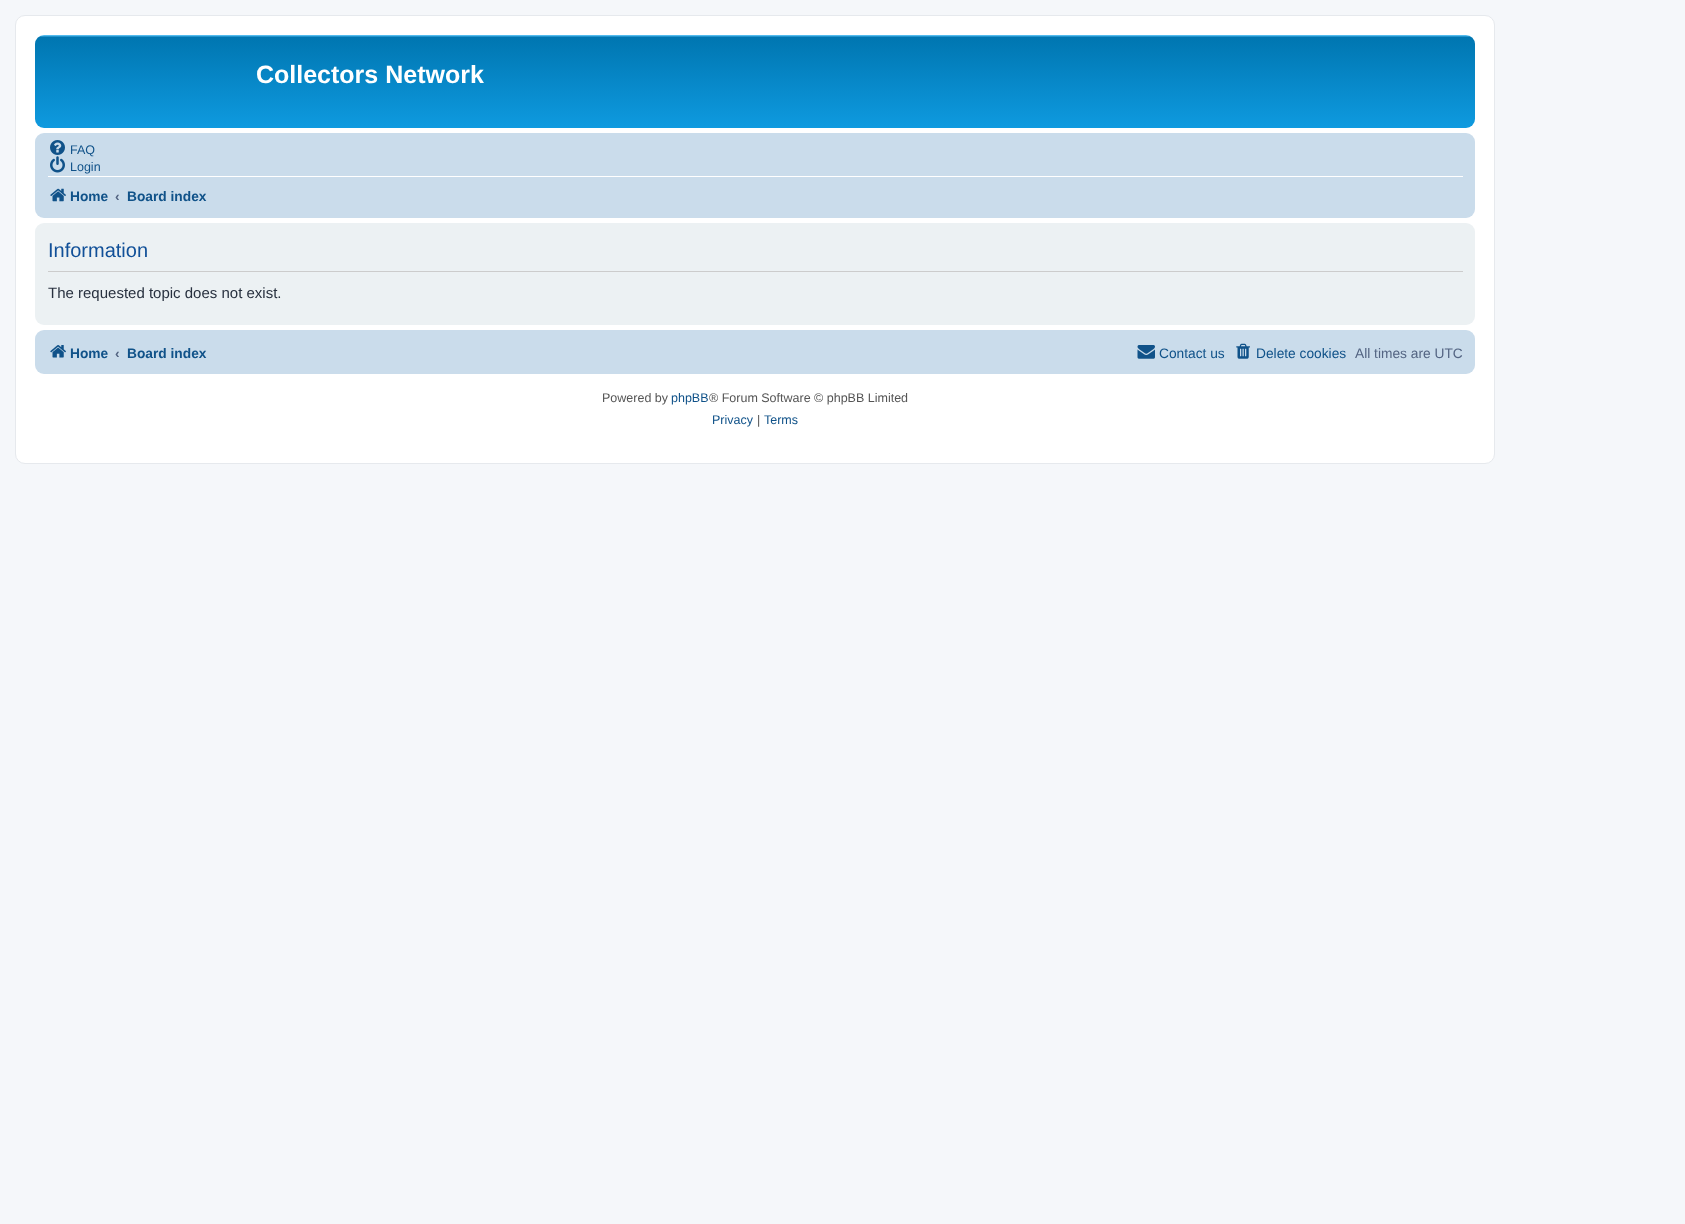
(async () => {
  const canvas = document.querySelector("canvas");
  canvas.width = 1685;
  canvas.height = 1224;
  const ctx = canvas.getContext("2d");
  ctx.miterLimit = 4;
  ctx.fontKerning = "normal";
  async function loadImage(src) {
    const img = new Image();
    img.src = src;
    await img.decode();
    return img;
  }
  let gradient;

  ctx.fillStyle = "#f5f7fa";
  ctx.fillRect(0, 0, 1685, 1224);
  ctx.fillStyle = "#ffffff";
  ctx.beginPath();
  ctx.roundRect(15.5, 15.5, 1479, 448, 9.5);
  ctx.fill();
  ctx.strokeStyle = "#e6e9ed";
  ctx.stroke();
  gradient = ctx.createLinearGradient(755, 35, 755, 150);
  gradient.addColorStop(0, "#6aceff");
  gradient.addColorStop(0.02, "#0076b1");
  gradient.addColorStop(1, "#12a3eb");
  ctx.fillStyle = gradient;
  ctx.beginPath();
  ctx.roundRect(35, 35, 1440, 93, 9);
  ctx.fill();
  ctx.fillStyle = "#cadceb";
  ctx.beginPath();
  ctx.roundRect(35, 133, 1440, 85, 9);
  ctx.fill();
  ctx.drawImage(await loadImage("img/1.png"), 50, 140, 15, 15);
  ctx.drawImage(await loadImage("img/2.png"), 50, 156, 15, 17);
  ctx.fillStyle = "#ffffff";
  ctx.fillRect(48, 176, 1415, 1);
  ctx.drawImage(await loadImage("img/3.png"), 50, 188, 16, 14);
  ctx.fillStyle = "#ecf1f3";
  ctx.beginPath();
  ctx.roundRect(35, 223, 1440, 102, 9);
  ctx.fill();
  ctx.fillStyle = "#cccccc";
  ctx.fillRect(48, 271, 1415, 1);
  ctx.fillStyle = "#cadceb";
  ctx.beginPath();
  ctx.roundRect(35, 330, 1440, 44, 9);
  ctx.fill();
  ctx.drawImage(await loadImage("img/4.png"), 50, 345, 16, 13);
  ctx.drawImage(await loadImage("img/5.png"), 1137, 345, 18, 14);
  ctx.drawImage(await loadImage("img/6.png"), 1236, 343, 14, 16);
  ctx.font = "bold 25px Liberation Sans";
  ctx.fillStyle = "#ffffff";
  ctx.fillText("Collectors Network", 256, 83);
  ctx.font = "12.5px Liberation Sans";
  ctx.fillStyle = "#105289";
  ctx.fillText("FAQ", 70, 154);
  ctx.fillText("Login", 70, 171);
  ctx.font = "bold 13.75px Liberation Sans";
  ctx.fillText("Home", 70, 201);
  ctx.fillStyle = "#536482";
  ctx.fillText("‹", 115, 201);
  ctx.fillStyle = "#105289";
  ctx.fillText("Board index", 127, 201);
  ctx.font = "20px Liberation Sans";
  ctx.fillStyle = "#115098";
  ctx.fillText("Information", 48, 257);
  ctx.font = "15px Liberation Sans";
  ctx.fillStyle = "#28313f";
  ctx.fillText("The requested topic does not exist.", 48, 298);
  ctx.font = "bold 13.75px Liberation Sans";
  ctx.fillStyle = "#105289";
  ctx.fillText("Home", 70, 358);
  ctx.fillStyle = "#536482";
  ctx.fillText("‹", 115, 358);
  ctx.fillStyle = "#105289";
  ctx.fillText("Board index", 127, 358);
  ctx.font = "13.75px Liberation Sans";
  ctx.fillText("Contact us", 1159, 358);
  ctx.fillText("Delete cookies", 1256, 358);
  ctx.fillStyle = "#536482";
  ctx.fillText("All times are UTC", 1355, 358);
  ctx.font = "12.5px Liberation Sans";
  ctx.fillStyle = "#555555";
  ctx.fillText("Powered by", 602, 402);
  ctx.fillStyle = "#105289";
  ctx.fillText("phpBB", 671, 402);
  ctx.fillStyle = "#555555";
  ctx.fillText("® Forum Software © phpBB Limited", 709, 402);
  ctx.fillStyle = "#105289";
  ctx.fillText("Privacy", 712, 424);
  ctx.fillStyle = "#555555";
  ctx.fillText("|", 757, 424);
  ctx.fillStyle = "#105289";
  ctx.fillText("Terms", 764, 424);
})();
